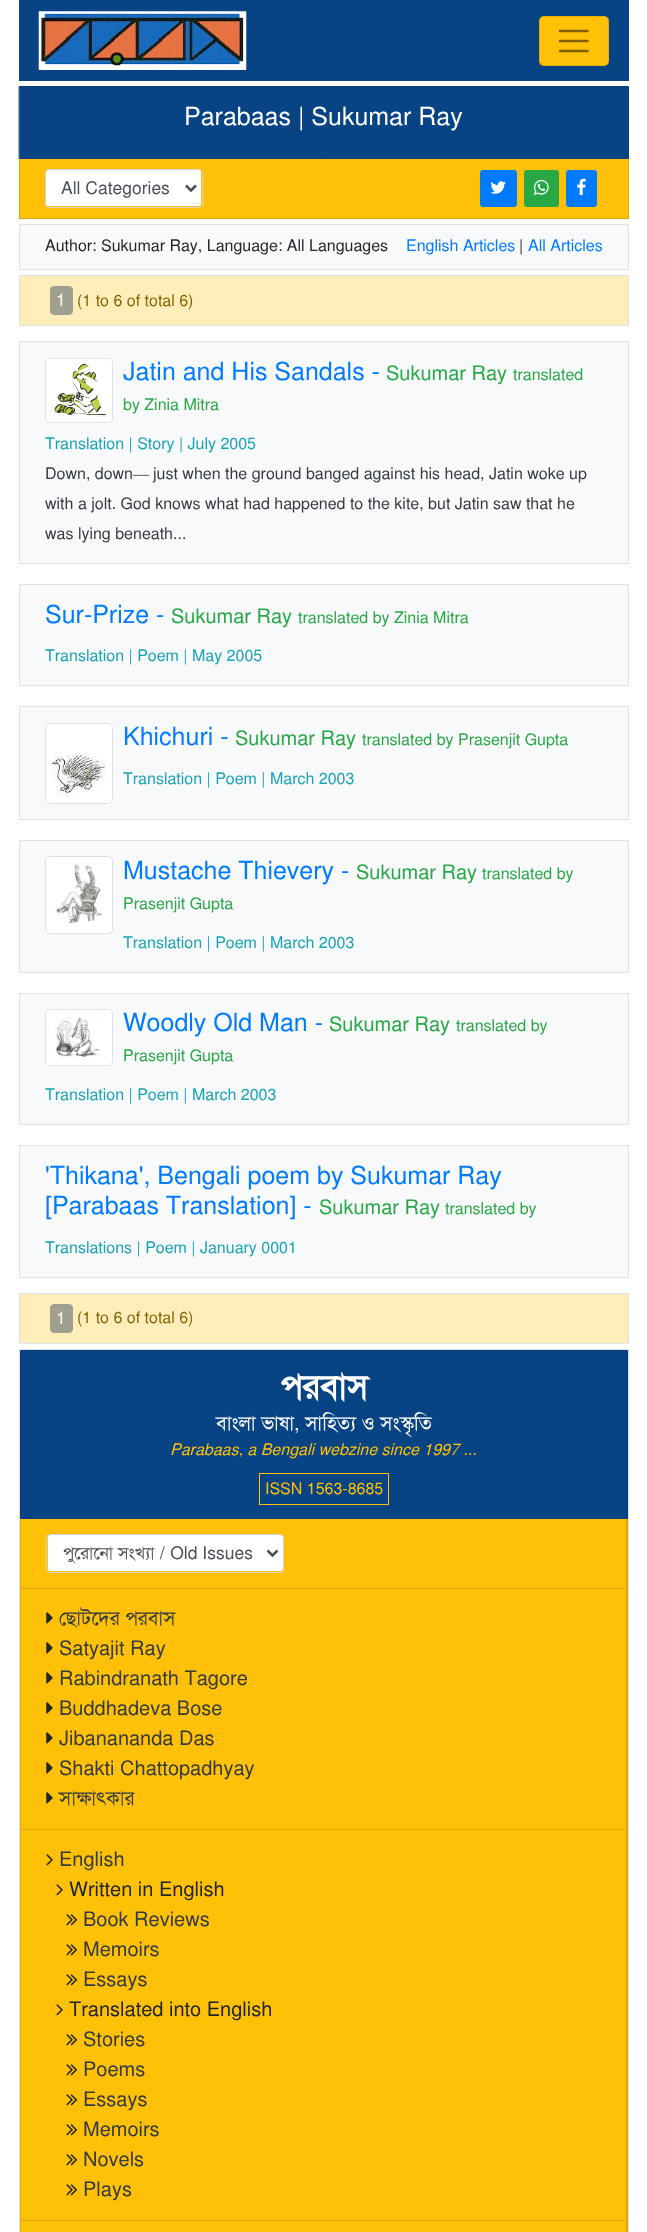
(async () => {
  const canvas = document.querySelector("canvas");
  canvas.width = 647;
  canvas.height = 2232;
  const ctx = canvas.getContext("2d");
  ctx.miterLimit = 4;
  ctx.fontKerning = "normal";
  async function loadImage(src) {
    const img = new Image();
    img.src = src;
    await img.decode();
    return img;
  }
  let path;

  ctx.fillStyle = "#ffffff";
  ctx.fillRect(0, 0, 647, 2232);
  ctx.fillStyle = "#084484";
  ctx.fillRect(19, 0, 610, 81);
  ctx.drawImage(await loadImage("img/1.png"), 38, 11, 209, 59);
  ctx.fillStyle = "#ffc107";
  ctx.beginPath();
  ctx.roundRect(539, 16, 70, 50, 5);
  ctx.fill();
  ctx.beginPath();
  ctx.roundRect(539.5, 16.5, 69, 49, 4.5);
  ctx.strokeStyle = "rgba(0, 0, 0, 0.1)";
  ctx.stroke();
  path = new Path2D("M560 31H587.5M560 41H587.5M560 51H587.5");
  ctx.strokeStyle = "#806104";
  ctx.lineWidth = 2.5;
  ctx.lineCap = "round";
  ctx.stroke(path);
  ctx.fillStyle = "#084484";
  ctx.beginPath();
  ctx.rect(19.5, 86.5, 609, 72);
  ctx.fill();
  ctx.strokeStyle = "#073c74";
  ctx.lineWidth = 1;
  ctx.stroke();
  ctx.fillStyle = "#ffc107";
  ctx.fillRect(19, 159, 610, 60);
  ctx.fillStyle = "#dfa906";
  path = new Path2D("M629 159V219L628 218V159Z");
  ctx.fill(path);
  ctx.fillStyle = "rgba(0, 0, 0, 0.12)";
  path = new Path2D("M629 219H19L20 218H628Z");
  ctx.fill(path);
  path = new Path2D("M19 219V159H20V218Z");
  ctx.fill(path);
  ctx.fillStyle = "#ffffff";
  ctx.beginPath();
  ctx.roundRect(46, 170, 155, 36, 2.5);
  ctx.fill();
  ctx.beginPath();
  ctx.roundRect(45.5, 169.5, 157, 38, 3.5);
  ctx.strokeStyle = "#ced4da";
  ctx.stroke();
  path = new Path2D("M186 185.5L191 190.5L196 185.5");
  ctx.strokeStyle = "#495057";
  ctx.lineWidth = 2.5;
  ctx.lineCap = "butt";
  ctx.stroke(path);
  ctx.fillStyle = "#007bff";
  ctx.beginPath();
  ctx.roundRect(479.5, 169.5, 38, 38, 3.5);
  ctx.fill();
  ctx.strokeStyle = "#ffc107";
  ctx.lineWidth = 1;
  ctx.stroke();
  ctx.drawImage(await loadImage("img/2.png"), 490, 181, 16, 13);
  ctx.fillStyle = "#28a745";
  ctx.beginPath();
  ctx.roundRect(523.5, 169.5, 36, 38, 3.5);
  ctx.fill();
  ctx.stroke();
  ctx.drawImage(await loadImage("img/3.png"), 533, 179, 16, 16);
  ctx.fillStyle = "#007bff";
  ctx.beginPath();
  ctx.roundRect(565.5, 169.5, 32, 38, 3.5);
  ctx.fill();
  ctx.stroke();
  ctx.drawImage(await loadImage("img/4.png"), 577, 178, 9, 17);
  ctx.fillStyle = "#f8f9fa";
  ctx.beginPath();
  ctx.rect(19.5, 224.5, 609, 45);
  ctx.fill();
  ctx.strokeStyle = "#dee2e6";
  ctx.stroke();
  ctx.fillStyle = "#ffeeba";
  ctx.beginPath();
  ctx.rect(19.5, 275.5, 609, 50);
  ctx.fill();
  ctx.stroke();
  ctx.fillStyle = "#9f9f92";
  ctx.beginPath();
  ctx.roundRect(50.5, 286.5, 22, 28, 3.5);
  ctx.fill();
  ctx.strokeStyle = "#9f9f92";
  ctx.stroke();
  ctx.fillStyle = "#f8f9fa";
  ctx.beginPath();
  ctx.rect(19.5, 341.5, 609, 222);
  ctx.fill();
  ctx.strokeStyle = "#dee2e6";
  ctx.stroke();
  ctx.fillStyle = "#ffffff";
  ctx.beginPath();
  ctx.roundRect(45.5, 358.5, 67, 64, 4.5);
  ctx.fill();
  ctx.stroke();
  ctx.drawImage(await loadImage("img/5.png"), 53, 363, 54, 54);
  ctx.fillStyle = "#f8f9fa";
  ctx.beginPath();
  ctx.rect(19.5, 584.5, 609, 101);
  ctx.fill();
  ctx.stroke();
  ctx.beginPath();
  ctx.rect(19.5, 706.5, 609, 113);
  ctx.fill();
  ctx.stroke();
  ctx.fillStyle = "#ffffff";
  ctx.beginPath();
  ctx.roundRect(45.5, 723.5, 67, 80, 4.5);
  ctx.fill();
  ctx.stroke();
  ctx.drawImage(await loadImage("img/6.png"), 52, 752, 53, 44);
  ctx.fillStyle = "#f8f9fa";
  ctx.beginPath();
  ctx.rect(19.5, 840.5, 609, 132);
  ctx.fill();
  ctx.stroke();
  ctx.fillStyle = "#ffffff";
  ctx.beginPath();
  ctx.roundRect(45.5, 856.5, 67, 77, 4.5);
  ctx.fill();
  ctx.stroke();
  ctx.drawImage(await loadImage("img/7.png"), 55, 864, 50, 60);
  ctx.fillStyle = "#f8f9fa";
  ctx.beginPath();
  ctx.rect(19.5, 993.5, 609, 131);
  ctx.fill();
  ctx.stroke();
  ctx.fillStyle = "#ffffff";
  ctx.beginPath();
  ctx.roundRect(45.5, 1009.5, 67, 56, 4.5);
  ctx.fill();
  ctx.stroke();
  ctx.drawImage(await loadImage("img/8.png"), 53, 1015, 47, 44);
  ctx.fillStyle = "#f8f9fa";
  ctx.beginPath();
  ctx.rect(19.5, 1145.5, 609, 132);
  ctx.fill();
  ctx.stroke();
  ctx.fillStyle = "#ffeeba";
  ctx.beginPath();
  ctx.rect(19.5, 1293.5, 609, 50);
  ctx.fill();
  ctx.stroke();
  ctx.fillStyle = "#9f9f92";
  ctx.beginPath();
  ctx.roundRect(50.5, 1304.5, 22, 28, 3.5);
  ctx.fill();
  ctx.strokeStyle = "#9f9f92";
  ctx.stroke();
  ctx.fillStyle = "#ffc107";
  ctx.fillRect(20, 1519, 608, 713);
  ctx.strokeStyle = "#dee2e6";
  ctx.strokeRect(19.5, 1349.5, 609, 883);
  ctx.fillStyle = "#084484";
  ctx.beginPath();
  ctx.rect(20.5, 1350.5, 607, 168);
  ctx.fill();
  ctx.strokeStyle = "#073c74";
  ctx.stroke();
  ctx.strokeStyle = "#ffc107";
  ctx.strokeRect(259.5, 1473.5, 129, 31);
  ctx.fillStyle = "#dfa906";
  path = new Path2D("M628 1519V1589L626 1588V1519Z");
  ctx.fill(path);
  ctx.fillStyle = "rgba(0, 0, 0, 0.12)";
  path = new Path2D("M628 1589H20L21 1588H626Z");
  ctx.fill(path);
  path = new Path2D("M20 1589V1519H21V1588Z");
  ctx.fill(path);
  ctx.fillStyle = "#ffffff";
  ctx.beginPath();
  ctx.roundRect(48, 1535, 235, 36, 2.5);
  ctx.fill();
  ctx.beginPath();
  ctx.roundRect(46.5, 1534.5, 237, 38, 3.5);
  ctx.strokeStyle = "#ced4da";
  ctx.stroke();
  path = new Path2D("M267.5 1550.5L272.5 1555.5L277.5 1550.5");
  ctx.strokeStyle = "#495057";
  ctx.lineWidth = 2.5;
  ctx.stroke(path);
  ctx.fillStyle = "#dfa906";
  path = new Path2D("M628 1589V1830L626 1829V1589Z");
  ctx.fill(path);
  ctx.fillStyle = "rgba(0, 0, 0, 0.12)";
  path = new Path2D("M628 1830H20L21 1829H626Z");
  ctx.fill(path);
  path = new Path2D("M20 1830V1589H21V1829Z");
  ctx.fill(path);
  ctx.drawImage(await loadImage("img/9.png"), 46, 1612, 7, 12);
  ctx.drawImage(await loadImage("img/9.png"), 46, 1642, 7, 12);
  ctx.drawImage(await loadImage("img/9.png"), 46, 1672, 7, 12);
  ctx.drawImage(await loadImage("img/9.png"), 46, 1702, 7, 12);
  ctx.drawImage(await loadImage("img/9.png"), 46, 1732, 7, 12);
  ctx.drawImage(await loadImage("img/9.png"), 46, 1762, 7, 12);
  ctx.drawImage(await loadImage("img/9.png"), 46, 1792, 7, 12);
  ctx.fillStyle = "#dfa906";
  path = new Path2D("M628 1830V2221L626 2220V1830Z");
  ctx.fill(path);
  ctx.fillStyle = "rgba(0, 0, 0, 0.12)";
  path = new Path2D("M628 2221H20L21 2220H626Z");
  ctx.fill(path);
  path = new Path2D("M20 2221V1830H21V2220Z");
  ctx.fill(path);
  ctx.drawImage(await loadImage("img/10.png"), 46, 1854, 7, 12);
  ctx.drawImage(await loadImage("img/10.png"), 56, 1884, 7, 12);
  ctx.drawImage(await loadImage("img/11.png"), 66, 1914, 12, 12);
  ctx.drawImage(await loadImage("img/11.png"), 66, 1944, 12, 12);
  ctx.drawImage(await loadImage("img/11.png"), 66, 1974, 12, 12);
  ctx.drawImage(await loadImage("img/10.png"), 56, 2004, 7, 12);
  ctx.drawImage(await loadImage("img/11.png"), 66, 2034, 12, 12);
  ctx.drawImage(await loadImage("img/11.png"), 66, 2064, 12, 12);
  ctx.drawImage(await loadImage("img/11.png"), 66, 2094, 12, 12);
  ctx.drawImage(await loadImage("img/11.png"), 66, 2124, 12, 12);
  ctx.drawImage(await loadImage("img/11.png"), 66, 2154, 12, 12);
  ctx.drawImage(await loadImage("img/11.png"), 66, 2184, 12, 12);
  ctx.fillStyle = "#dfa906";
  path = new Path2D("M628 2221V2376L626 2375V2221Z");
  ctx.fill(path);
  path = new Path2D("M20 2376V2221H21V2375Z");
  ctx.fill(path);
  ctx.font = "25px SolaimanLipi";
  ctx.fillStyle = "#ffffff";
  ctx.fillText("Parabaas | Sukumar Ray", 184, 125);
  ctx.font = "17.5px SolaimanLipi";
  ctx.fillStyle = "#495057";
  ctx.fillText("All Categories", 61, 194);
  ctx.font = "16px SolaimanLipi";
  ctx.fillStyle = "#212529";
  ctx.fillText("Author: Sukumar Ray, Language: All Languages", 45, 251);
  ctx.fillStyle = "#007bff";
  ctx.fillText("English Articles", 406, 251);
  ctx.fillStyle = "#212529";
  ctx.fillText("|", 519, 251);
  ctx.fillStyle = "#007bff";
  ctx.fillText("All Articles", 528, 251);
  ctx.font = "17.5px SolaimanLipi";
  ctx.fillStyle = "#fff9e7";
  ctx.fillText("1", 56, 306);
  ctx.font = "16px SolaimanLipi";
  ctx.fillStyle = "#856404";
  ctx.fillText("(1 to 6 of total 6)", 77, 306);
  ctx.font = "25px SolaimanLipi";
  ctx.fillStyle = "#007bff";
  ctx.fillText("Jatin and His Sandals -", 123, 380);
  ctx.font = "20px SolaimanLipi";
  ctx.fillStyle = "#28a745";
  ctx.fillText("Sukumar Ray", 386, 380);
  ctx.font = "16px SolaimanLipi";
  ctx.fillText("translated", 513, 380);
  ctx.fillText("by Zinia Mitra", 123, 410);
  ctx.fillStyle = "#17a2b8";
  ctx.fillText("Translation | Story | July 2005", 45, 449);
  ctx.fillStyle = "#343a40";
  ctx.fillText("Down, down", 45, 479);
  ctx.font = "16px Liberation Serif";
  ctx.fillText("—", 133, 479);
  ctx.font = "16px SolaimanLipi";
  for (const [text, x, y] of [
    ["just when the ground banged against his head, Jatin woke up", 153, 479],
    ["with a jolt. God knows what had happened to the kite, but Jatin saw that he", 45, 509],
    ["was lying beneath...", 45, 539],
  ]) {
    ctx.fillText(text, x, y);
  }
  ctx.font = "25px SolaimanLipi";
  ctx.fillStyle = "#007bff";
  ctx.fillText("Sur-Prize -", 45, 623);
  ctx.font = "20px SolaimanLipi";
  ctx.fillStyle = "#28a745";
  ctx.fillText("Sukumar Ray", 171, 623);
  ctx.font = "16px SolaimanLipi";
  ctx.fillText("translated by Zinia Mitra", 298, 623);
  ctx.fillStyle = "#17a2b8";
  ctx.fillText("Translation | Poem | May 2005", 45, 661);
  ctx.font = "25px SolaimanLipi";
  ctx.fillStyle = "#007bff";
  ctx.fillText("Khichuri -", 123, 745);
  ctx.font = "20px SolaimanLipi";
  ctx.fillStyle = "#28a745";
  ctx.fillText("Sukumar Ray", 235, 745);
  ctx.font = "16px SolaimanLipi";
  ctx.fillText("translated by Prasenjit Gupta", 362, 745);
  ctx.fillStyle = "#17a2b8";
  ctx.fillText("Translation | Poem | March 2003", 123, 784);
  ctx.font = "25px SolaimanLipi";
  ctx.fillStyle = "#007bff";
  ctx.fillText("Mustache Thievery -", 123, 879);
  ctx.font = "20px SolaimanLipi";
  ctx.fillStyle = "#28a745";
  ctx.fillText("Sukumar Ray", 356, 879);
  ctx.font = "16px SolaimanLipi";
  ctx.fillText("translated by", 482, 879);
  ctx.fillText("Prasenjit Gupta", 123, 909);
  ctx.fillStyle = "#17a2b8";
  ctx.fillText("Translation | Poem | March 2003", 123, 948);
  ctx.font = "25px SolaimanLipi";
  ctx.fillStyle = "#007bff";
  ctx.fillText("Woodly Old Man -", 123, 1031);
  ctx.font = "20px SolaimanLipi";
  ctx.fillStyle = "#28a745";
  ctx.fillText("Sukumar Ray", 329, 1031);
  ctx.font = "16px SolaimanLipi";
  ctx.fillText("translated by", 456, 1031);
  ctx.fillText("Prasenjit Gupta", 123, 1061);
  ctx.fillStyle = "#17a2b8";
  ctx.fillText("Translation | Poem | March 2003", 45, 1100);
  ctx.font = "25px SolaimanLipi";
  ctx.fillStyle = "#007bff";
  ctx.fillText("'Thikana', Bengali poem by Sukumar Ray", 45, 1184);
  ctx.fillText("[Parabaas Translation] -", 45, 1214);
  ctx.font = "20px SolaimanLipi";
  ctx.fillStyle = "#28a745";
  ctx.fillText("Sukumar Ray", 319, 1214);
  ctx.font = "16px SolaimanLipi";
  ctx.fillText("translated by", 445, 1214);
  ctx.fillStyle = "#17a2b8";
  ctx.fillText("Translations | Poem | January 0001", 45, 1253);
  ctx.font = "17.5px SolaimanLipi";
  ctx.fillStyle = "#fff9e7";
  ctx.fillText("1", 56, 1324);
  ctx.font = "16px SolaimanLipi";
  ctx.fillStyle = "#856404";
  ctx.fillText("(1 to 6 of total 6)", 77, 1323);
  ctx.font = "bold 35px SolaimanLipi";
  ctx.fillStyle = "#ffffff";
  ctx.fillText("পরবাস", 280, 1399);
  ctx.font = "20px SolaimanLipi";
  ctx.fillText("বাংলা ভাষা, সাহিত্য ও সংস্কৃতি", 216, 1430);
  ctx.font = "italic 16px SolaimanLipi";
  ctx.fillStyle = "#ffc107";
  ctx.fillText("Parabaas, a Bengali webzine since 1997 ...", 170, 1455);
  ctx.font = "16px SolaimanLipi";
  ctx.fillText("ISSN 1563-8685", 265, 1494);
  ctx.save();
  ctx.beginPath();
  ctx.rect(63, 1541, 190, 24);
  ctx.clip();
  ctx.font = "17.5px SolaimanLipi";
  ctx.fillStyle = "#495057";
  ctx.fillText("পুরোনো সংখ্যা / Old Issues", 63, 1559);
  ctx.restore();
  ctx.font = "20px SolaimanLipi";
  ctx.fillStyle = "#343a40";
  for (const [text, x, y] of [
    ["ছোটদের পরবাস", 59, 1625],
    ["Satyajit Ray", 59, 1655],
    ["Rabindranath Tagore", 59, 1685],
    ["Buddhadeva Bose", 59, 1715],
    ["Jibanananda Das", 59, 1745],
    ["Shakti Chattopadhyay", 59, 1775],
    ["সাক্ষাৎকার", 59, 1805],
    ["English", 59, 1866],
  ]) {
    ctx.fillText(text, x, y);
  }
  ctx.fillStyle = "#212529";
  ctx.fillText("Written in English", 69, 1896);
  ctx.fillStyle = "#343a40";
  for (const [text, x, y] of [
    ["Book Reviews", 83, 1926],
    ["Memoirs", 83, 1956],
    ["Essays", 83, 1986],
  ]) {
    ctx.fillText(text, x, y);
  }
  ctx.fillStyle = "#212529";
  ctx.fillText("Translated into English", 69, 2016);
  ctx.fillStyle = "#343a40";
  for (const [text, x, y] of [
    ["Stories", 83, 2046],
    ["Poems", 83, 2076],
    ["Essays", 83, 2106],
    ["Memoirs", 83, 2136],
    ["Novels", 83, 2166],
    ["Plays", 83, 2196],
  ]) {
    ctx.fillText(text, x, y);
  }
})();
